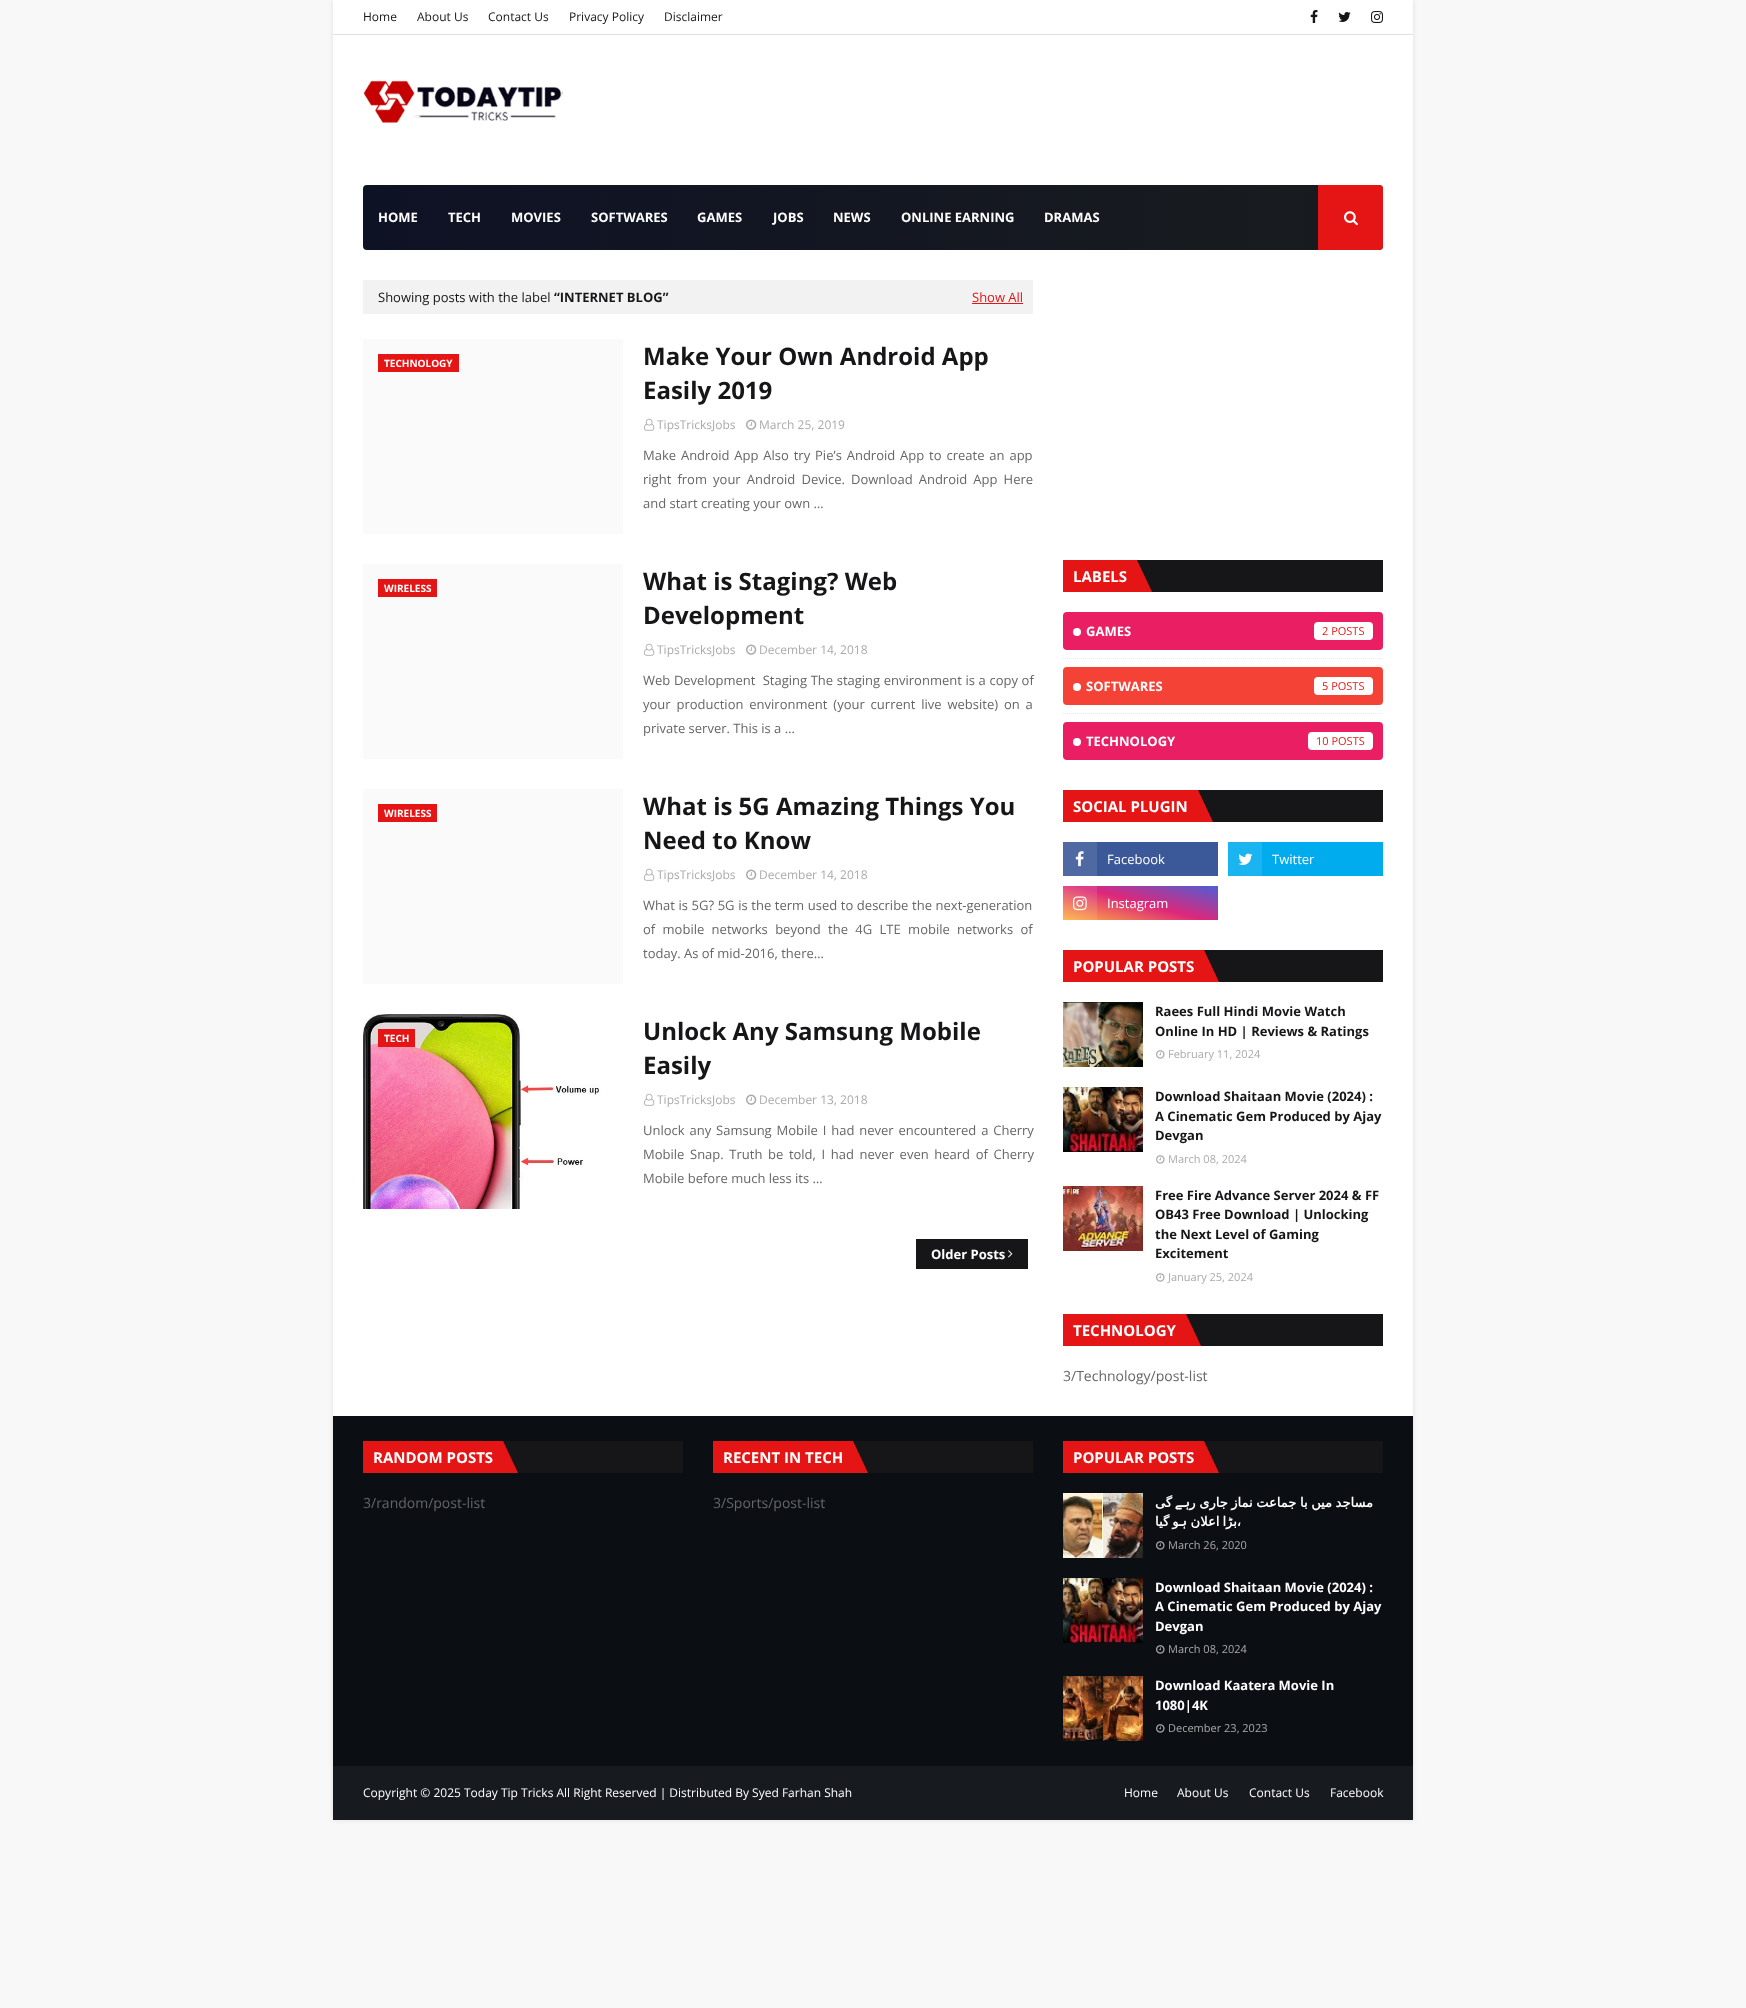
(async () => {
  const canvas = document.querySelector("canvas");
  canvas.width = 1746;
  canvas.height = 2008;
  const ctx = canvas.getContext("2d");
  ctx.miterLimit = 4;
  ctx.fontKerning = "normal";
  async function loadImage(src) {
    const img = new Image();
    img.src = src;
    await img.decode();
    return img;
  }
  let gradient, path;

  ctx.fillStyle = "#f8f8f8";
  ctx.fillRect(0, 0, 1746, 2008);
  ctx.fillStyle = "rgba(0, 0, 0, 0.1)";
  ctx.filter = "blur(2.5px)";
  ctx.beginPath();
  ctx.rect(333, 0, 1080, 1820);
  ctx.fill();
  ctx.filter = "none";
  ctx.fillStyle = "#ffffff";
  ctx.fillRect(333, 0, 1080, 1416);
  ctx.fillStyle = "#e0dede";
  ctx.fillRect(333, 34, 1080, 1);
  ctx.drawImage(await loadImage("img/1.png"), 1310, 10, 8, 13);
  ctx.drawImage(await loadImage("img/2.png"), 1338, 12, 13, 10);
  ctx.drawImage(await loadImage("img/3.png"), 1371, 11, 12, 12);
  ctx.drawImage(await loadImage("img/4.png"), 363, 80, 200, 43);
  gradient = ctx.createLinearGradient(363, 218, 1383, 217);
  gradient.addColorStop(0, "#0e1225");
  gradient.addColorStop(1, "#191c1e");
  ctx.fillStyle = gradient;
  ctx.beginPath();
  ctx.roundRect(363, 185, 1020, 65, 4);
  ctx.fill();
  ctx.fillStyle = "#e51515";
  ctx.beginPath();
  ctx.roundRect(1318, 185, 65, 65, [0, 4, 4, 0]);
  ctx.fill();
  ctx.drawImage(await loadImage("img/5.png"), 1344, 211, 14, 15);
  for (const [x, y, w, h, color] of [
    [363, 280, 670, 34, "#f2f2f2"],
    [972, 303, 51, 1, "#e51515"],
    [363, 339, 260, 195, "#fafafa"],
    [378, 354, 81, 18, "#e51515"],
  ]) {
    ctx.fillStyle = color;
    ctx.fillRect(x, y, w, h);
  }
  ctx.drawImage(await loadImage("img/6.png"), 644, 418, 11, 13);
  ctx.drawImage(await loadImage("img/7.png"), 746, 419, 11, 11);
  ctx.fillStyle = "#fafafa";
  ctx.fillRect(363, 564, 260, 195);
  ctx.fillStyle = "#e51515";
  ctx.fillRect(378, 579, 59, 18);
  ctx.drawImage(await loadImage("img/6.png"), 644, 643, 11, 13);
  ctx.drawImage(await loadImage("img/7.png"), 746, 644, 11, 11);
  ctx.fillStyle = "#fafafa";
  ctx.fillRect(363, 789, 260, 195);
  ctx.fillStyle = "#e51515";
  ctx.fillRect(378, 804, 59, 18);
  ctx.drawImage(await loadImage("img/6.png"), 644, 868, 11, 13);
  ctx.drawImage(await loadImage("img/7.png"), 746, 869, 11, 11);
  ctx.drawImage(await loadImage("img/8.png"), 363, 1014, 260, 195);
  ctx.fillRect(378, 1029, 37, 18);
  ctx.drawImage(await loadImage("img/6.png"), 644, 1093, 11, 13);
  ctx.drawImage(await loadImage("img/7.png"), 746, 1094, 11, 11);
  ctx.fillStyle = "#161619";
  ctx.fillRect(916, 1239, 112, 30);
  ctx.drawImage(await loadImage("img/9.png"), 1008, 1250, 5, 8);
  ctx.fillRect(1137, 560, 246, 32);
  ctx.fillStyle = "#e51515";
  ctx.fillRect(1063, 560, 74, 32);
  path = new Path2D("M1137 592V560L1152 592Z");
  ctx.fill(path);
  ctx.fillStyle = "#e91e63";
  ctx.beginPath();
  ctx.roundRect(1063, 612, 320, 38, 4);
  ctx.fill();
  ctx.fillStyle = "#ffffff";
  ctx.beginPath();
  ctx.arc(1077, 632, 4, 0, Math.PI * 2);
  ctx.fill();
  ctx.beginPath();
  ctx.roundRect(1314, 622, 59, 18, 4);
  ctx.fill();
  path = new Path2D("M1063 658.5H1383");
  ctx.strokeStyle = "#eaeaea";
  ctx.setLineDash([1, 1]);
  ctx.stroke(path);
  ctx.fillStyle = "#f44336";
  ctx.beginPath();
  ctx.roundRect(1063, 667, 320, 38, 4);
  ctx.fill();
  ctx.fillStyle = "#ffffff";
  ctx.beginPath();
  ctx.arc(1077, 687, 4, 0, Math.PI * 2);
  ctx.fill();
  ctx.beginPath();
  ctx.roundRect(1314, 677, 59, 18, 4);
  ctx.fill();
  path = new Path2D("M1063 713.5H1383");
  ctx.stroke(path);
  ctx.fillStyle = "#e91e63";
  ctx.beginPath();
  ctx.roundRect(1063, 722, 320, 38, 4);
  ctx.fill();
  ctx.fillStyle = "#ffffff";
  ctx.beginPath();
  ctx.arc(1077, 742, 4, 0, Math.PI * 2);
  ctx.fill();
  ctx.beginPath();
  ctx.roundRect(1308, 732, 65, 18, 4);
  ctx.fill();
  ctx.fillStyle = "#161619";
  ctx.fillRect(1198, 790, 185, 32);
  ctx.fillStyle = "#e51515";
  ctx.fillRect(1063, 790, 135, 32);
  path = new Path2D("M1198 822V790L1213 822Z");
  ctx.fill(path);
  ctx.fillStyle = "#3b5999";
  ctx.fillRect(1097, 842, 121, 34);
  ctx.fillStyle = "#4f6aa3";
  ctx.fillRect(1063, 842, 34, 34);
  ctx.drawImage(await loadImage("img/10.png"), 1075, 851, 9, 16);
  ctx.fillStyle = "#00acee";
  ctx.fillRect(1262, 842, 121, 34);
  ctx.fillStyle = "#1ab4f0";
  ctx.fillRect(1228, 842, 34, 34);
  ctx.drawImage(await loadImage("img/11.png"), 1238, 853, 15, 12);
  gradient = ctx.createLinearGradient(1131, 938, 1150, 868);
  gradient.addColorStop(0, "#ffb13d");
  gradient.addColorStop(0.5, "#dd277b");
  gradient.addColorStop(1, "#4d5ed4");
  ctx.fillStyle = gradient;
  ctx.fillRect(1097, 886, 121, 34);
  gradient = ctx.createLinearGradient(1131, 938, 1150, 868);
  gradient.addColorStop(0, "#ffb950");
  gradient.addColorStop(0.5, "#e03d88");
  gradient.addColorStop(1, "#5f6ed8");
  ctx.fillStyle = gradient;
  ctx.fillRect(1063, 886, 34, 34);
  ctx.drawImage(await loadImage("img/12.png"), 1073, 896, 14, 15);
  ctx.fillStyle = "#161619";
  ctx.fillRect(1204, 950, 179, 32);
  ctx.fillStyle = "#e51515";
  ctx.fillRect(1063, 950, 141, 32);
  path = new Path2D("M1204 982V950L1219 982Z");
  ctx.fill(path);
  ctx.drawImage(await loadImage("img/13.png"), 1063, 1002, 80, 65);
  ctx.drawImage(await loadImage("img/14.png"), 1156, 1050, 9, 9);
  ctx.drawImage(await loadImage("img/15.png"), 1063, 1087, 80, 65);
  ctx.drawImage(await loadImage("img/14.png"), 1156, 1155, 9, 9);
  ctx.drawImage(await loadImage("img/16.png"), 1063, 1186, 80, 65);
  ctx.drawImage(await loadImage("img/14.png"), 1156, 1273, 9, 9);
  ctx.fillStyle = "#161619";
  ctx.fillRect(1186, 1314, 197, 32);
  ctx.fillStyle = "#e51515";
  ctx.fillRect(1063, 1314, 123, 32);
  path = new Path2D("M1186 1346V1314L1201 1346Z");
  ctx.fill(path);
  for (const [x, y, w, h, color] of [
    [333, 1416, 1080, 350, "#0b0e13"],
    [503, 1441, 180, 32, "#161619"],
    [363, 1441, 140, 32, "#e51515"],
  ]) {
    ctx.fillStyle = color;
    ctx.fillRect(x, y, w, h);
  }
  path = new Path2D("M503 1473V1441L518 1473Z");
  ctx.fill(path);
  ctx.fillStyle = "#161619";
  ctx.fillRect(853, 1441, 180, 32);
  ctx.fillStyle = "#e51515";
  ctx.fillRect(713, 1441, 140, 32);
  path = new Path2D("M853 1473V1441L868 1473Z");
  ctx.fill(path);
  ctx.fillStyle = "#161619";
  ctx.fillRect(1204, 1441, 179, 32);
  ctx.fillStyle = "#e51515";
  ctx.fillRect(1063, 1441, 141, 32);
  path = new Path2D("M1204 1473V1441L1219 1473Z");
  ctx.fill(path);
  ctx.drawImage(await loadImage("img/17.png"), 1063, 1493, 80, 65);
  ctx.drawImage(await loadImage("img/18.png"), 1156, 1541, 9, 9);
  ctx.drawImage(await loadImage("img/15.png"), 1063, 1578, 80, 65);
  ctx.drawImage(await loadImage("img/18.png"), 1156, 1645, 9, 9);
  ctx.drawImage(await loadImage("img/19.png"), 1063, 1676, 80, 65);
  ctx.drawImage(await loadImage("img/18.png"), 1156, 1724, 9, 9);
  ctx.fillStyle = "#171a1f";
  ctx.fillRect(333, 1766, 1080, 54);
  ctx.font = "12px Open Sans";
  ctx.fillStyle = "#161619";
  for (const [text, x, y] of [
    ["Home", 363, 21],
    ["About Us", 417, 21],
    ["Contact Us", 488, 21],
    ["Privacy Policy", 569, 21],
    ["Disclaimer", 664, 21],
  ]) {
    ctx.fillText(text, x, y);
  }
  ctx.font = "bold 13px Open Sans";
  ctx.fillStyle = "#ffffff";
  for (const [text, x, y] of [
    ["HOME", 378, 222],
    ["TECH", 448, 222],
    ["MOVIES", 511, 222],
    ["SOFTWARES", 591, 222],
    ["GAMES", 697, 222],
    ["JOBS", 773, 222],
    ["NEWS", 833, 222],
    ["ONLINE EARNING", 901, 222],
    ["DRAMAS", 1044, 222],
  ]) {
    ctx.fillText(text, x, y);
  }
  ctx.font = "13px Open Sans";
  ctx.fillStyle = "#161619";
  ctx.fillText("Showing posts with the label", 378, 302);
  ctx.font = "bold 13px Open Sans";
  ctx.fillText("“INTERNET BLOG”", 554, 302);
  ctx.font = "13px Open Sans";
  ctx.fillStyle = "#e51515";
  ctx.fillText("Show All", 972, 302);
  ctx.font = "bold 10px Open Sans";
  ctx.fillStyle = "#ffffff";
  ctx.fillText("TECHNOLOGY", 384, 367);
  ctx.font = "bold 24px Open Sans";
  ctx.fillStyle = "#161619";
  ctx.fillText("Make Your Own Android App", 643, 365);
  ctx.fillText("Easily 2019", 643, 399);
  ctx.font = "12px Open Sans";
  ctx.fillStyle = "#aaaaaa";
  ctx.fillText("TipsTricksJobs", 657, 429);
  ctx.fillText("March 25, 2019", 759, 429);
  ctx.wordSpacing = "1.5px";
  ctx.font = "13px Open Sans";
  ctx.fillStyle = "#666666";
  ctx.fillText("Make Android App Also try Pie’s Android App to create an app", 643, 460);
  ctx.wordSpacing = "2.75px";
  ctx.fillText("right from your Android Device. Download Android App Here", 643, 484);
  ctx.wordSpacing = "0px";
  ctx.fillText("and start creating your own …", 643, 508);
  ctx.font = "bold 10px Open Sans";
  ctx.fillStyle = "#ffffff";
  ctx.fillText("WIRELESS", 384, 592);
  ctx.font = "bold 24px Open Sans";
  ctx.fillStyle = "#161619";
  ctx.fillText("What is Staging? Web", 643, 590);
  ctx.fillText("Development", 643, 624);
  ctx.font = "12px Open Sans";
  ctx.fillStyle = "#aaaaaa";
  ctx.fillText("TipsTricksJobs", 657, 654);
  ctx.fillText("December 14, 2018", 759, 654);
  ctx.wordSpacing = "0.25px";
  ctx.font = "13px Open Sans";
  ctx.fillStyle = "#666666";
  ctx.fillText("Web Development  Staging The staging environment is a copy of", 643, 685);
  ctx.wordSpacing = "2.5px";
  ctx.fillText("your production environment (your current live website) on a", 643, 709);
  ctx.wordSpacing = "0px";
  ctx.fillText("private server. This is a …", 643, 733);
  ctx.font = "bold 10px Open Sans";
  ctx.fillStyle = "#ffffff";
  ctx.fillText("WIRELESS", 384, 817);
  ctx.font = "bold 24px Open Sans";
  ctx.fillStyle = "#161619";
  ctx.fillText("What is 5G Amazing Things You", 643, 815);
  ctx.fillText("Need to Know", 643, 849);
  ctx.font = "12px Open Sans";
  ctx.fillStyle = "#aaaaaa";
  ctx.fillText("TipsTricksJobs", 657, 879);
  ctx.fillText("December 14, 2018", 759, 879);
  ctx.wordSpacing = "0.25px";
  ctx.font = "13px Open Sans";
  ctx.fillStyle = "#666666";
  ctx.fillText("What is 5G? 5G is the term used to describe the next-generation", 643, 910);
  ctx.wordSpacing = "4px";
  ctx.fillText("of mobile networks beyond the 4G LTE mobile", 643, 934);
  ctx.fillText("networks of", 957, 934);
  ctx.wordSpacing = "0px";
  ctx.fillText("today. As of mid-2016, there…", 643, 958);
  ctx.font = "bold 10px Open Sans";
  ctx.fillStyle = "#ffffff";
  ctx.fillText("TECH", 384, 1042);
  ctx.font = "bold 24px Open Sans";
  ctx.fillStyle = "#161619";
  ctx.fillText("Unlock Any Samsung Mobile", 643, 1040);
  ctx.fillText("Easily", 643, 1074);
  ctx.font = "12px Open Sans";
  ctx.fillStyle = "#aaaaaa";
  ctx.fillText("TipsTricksJobs", 657, 1104);
  ctx.fillText("December 13, 2018", 759, 1104);
  ctx.wordSpacing = "1.5px";
  ctx.font = "13px Open Sans";
  ctx.fillStyle = "#666666";
  ctx.fillText("Unlock any Samsung Mobile I had never encountered a Cherry", 643, 1135);
  ctx.wordSpacing = "0px";
  ctx.fillText("Mobile", 643, 1159);
  ctx.wordSpacing = "2.25px";
  ctx.fillText("Snap. Truth be told, I had never even heard of Cherry", 690, 1159);
  ctx.wordSpacing = "0px";
  ctx.fillText("Mobile before much less its …", 643, 1183);
  ctx.font = "bold 13px Open Sans";
  ctx.fillStyle = "#ffffff";
  ctx.fillText("Older Posts", 931, 1259);
  ctx.font = "bold 15px Open Sans";
  ctx.fillText("LABELS", 1073, 582);
  ctx.font = "bold 13px Open Sans";
  ctx.fillText("GAMES", 1086, 636);
  ctx.font = "11px Open Sans";
  ctx.fillStyle = "#e51515";
  ctx.fillText("2 POSTS", 1322, 635);
  ctx.font = "bold 13px Open Sans";
  ctx.fillStyle = "#ffffff";
  ctx.fillText("SOFTWARES", 1086, 691);
  ctx.font = "11px Open Sans";
  ctx.fillStyle = "#e51515";
  ctx.fillText("5 POSTS", 1322, 690);
  ctx.font = "bold 13px Open Sans";
  ctx.fillStyle = "#ffffff";
  ctx.fillText("TECHNOLOGY", 1086, 746);
  ctx.font = "11px Open Sans";
  ctx.fillStyle = "#e51515";
  ctx.fillText("10 POSTS", 1316, 745);
  ctx.font = "bold 15px Open Sans";
  ctx.fillStyle = "#ffffff";
  ctx.fillText("SOCIAL PLUGIN", 1073, 812);
  ctx.font = "13px Open Sans";
  for (const [text, x, y] of [
    ["Facebook", 1107, 864],
    ["Twitter", 1272, 864],
    ["Instagram", 1107, 908],
  ]) {
    ctx.fillText(text, x, y);
  }
  ctx.font = "bold 15px Open Sans";
  ctx.fillText("POPULAR POSTS", 1073, 972);
  ctx.font = "bold 13px Open Sans";
  ctx.fillStyle = "#161619";
  ctx.fillText("Raees Full Hindi Movie Watch", 1155, 1016);
  ctx.fillText("Online In HD | Reviews & Ratings", 1155, 1036);
  ctx.font = "11px Open Sans";
  ctx.fillStyle = "#aaaaaa";
  ctx.fillText("February 11, 2024", 1168, 1058);
  ctx.font = "bold 13px Open Sans";
  ctx.fillStyle = "#161619";
  for (const [text, x, y] of [
    ["Download Shaitaan Movie (2024) :", 1155, 1101],
    ["A Cinematic Gem Produced by Ajay", 1155, 1121],
    ["Devgan", 1155, 1140],
  ]) {
    ctx.fillText(text, x, y);
  }
  ctx.font = "11px Open Sans";
  ctx.fillStyle = "#aaaaaa";
  ctx.fillText("March 08, 2024", 1168, 1163);
  ctx.font = "bold 13px Open Sans";
  ctx.fillStyle = "#161619";
  for (const [text, x, y] of [
    ["Free Fire Advance Server 2024 & FF", 1155, 1200],
    ["OB43 Free Download | Unlocking", 1155, 1219],
    ["the Next Level of Gaming", 1155, 1239],
    ["Excitement", 1155, 1258],
  ]) {
    ctx.fillText(text, x, y);
  }
  ctx.font = "11px Open Sans";
  ctx.fillStyle = "#aaaaaa";
  ctx.fillText("January 25, 2024", 1168, 1281);
  ctx.font = "bold 15px Open Sans";
  ctx.fillStyle = "#ffffff";
  ctx.fillText("TECHNOLOGY", 1073, 1336);
  ctx.font = "14px Open Sans";
  ctx.fillStyle = "#666666";
  ctx.fillText("3/Technology/post-list", 1063, 1381);
  ctx.font = "bold 15px Open Sans";
  ctx.fillStyle = "#ffffff";
  ctx.fillText("RANDOM POSTS", 373, 1463);
  ctx.font = "14px Open Sans";
  ctx.fillStyle = "#666666";
  ctx.fillText("3/random/post-list", 363, 1508);
  ctx.font = "bold 15px Open Sans";
  ctx.fillStyle = "#ffffff";
  ctx.fillText("RECENT IN TECH", 723, 1463);
  ctx.font = "14px Open Sans";
  ctx.fillStyle = "#666666";
  ctx.fillText("3/Sports/post-list", 713, 1508);
  ctx.font = "bold 15px Open Sans";
  ctx.fillStyle = "#ffffff";
  ctx.fillText("POPULAR POSTS", 1073, 1463);
  ctx.direction = "rtl";
  ctx.font = "bold 13px DejaVu Sans";
  ctx.fillText("گی", 1172, 1507);
  ctx.font = "bold 13px Cascadia Code";
  ctx.fillText("ہے", 1190, 1507);
  ctx.wordSpacing = "-0.5px";
  ctx.font = "bold 13px DejaVu Sans";
  ctx.fillText("مساجد میں با جماعت نماز جاری ر", 1373, 1507);
  ctx.wordSpacing = "-1px";
  ctx.fillText("‍و گیا", 1179, 1526);
  ctx.wordSpacing = "0px";
  ctx.font = "bold 13px Cascadia Code";
  ctx.fillText("ہ‍", 1187, 1526);
  ctx.wordSpacing = "-1px";
  ctx.font = "bold 13px DejaVu Sans";
  ctx.fillText("،بڑا اعلان", 1241, 1526);
  ctx.wordSpacing = "0px";
  ctx.direction = "ltr";
  ctx.font = "11px Open Sans";
  ctx.fillStyle = "#aaaaaa";
  ctx.fillText("March 26, 2020", 1168, 1549);
  ctx.font = "bold 13px Open Sans";
  ctx.fillStyle = "#ffffff";
  for (const [text, x, y] of [
    ["Download Shaitaan Movie (2024) :", 1155, 1592],
    ["A Cinematic Gem Produced by Ajay", 1155, 1611],
    ["Devgan", 1155, 1631],
  ]) {
    ctx.fillText(text, x, y);
  }
  ctx.font = "11px Open Sans";
  ctx.fillStyle = "#aaaaaa";
  ctx.fillText("March 08, 2024", 1168, 1653);
  ctx.font = "bold 13px Open Sans";
  ctx.fillStyle = "#ffffff";
  ctx.fillText("Download Kaatera Movie In", 1155, 1690);
  ctx.fillText("1080|4K", 1155, 1710);
  ctx.font = "11px Open Sans";
  ctx.fillStyle = "#aaaaaa";
  ctx.fillText("December 23, 2023", 1168, 1732);
  ctx.font = "12px Open Sans";
  ctx.fillStyle = "#ffffff";
  for (const [text, x, y] of [
    ["Copyright © 2025 Today Tip Tricks All Right Reserved | Distributed By Syed Farhan Shah", 363, 1797],
    ["Home", 1124, 1797],
    ["About Us", 1177, 1797],
    ["Contact Us", 1249, 1797],
    ["Facebook", 1330, 1797],
  ]) {
    ctx.fillText(text, x, y);
  }
})();
